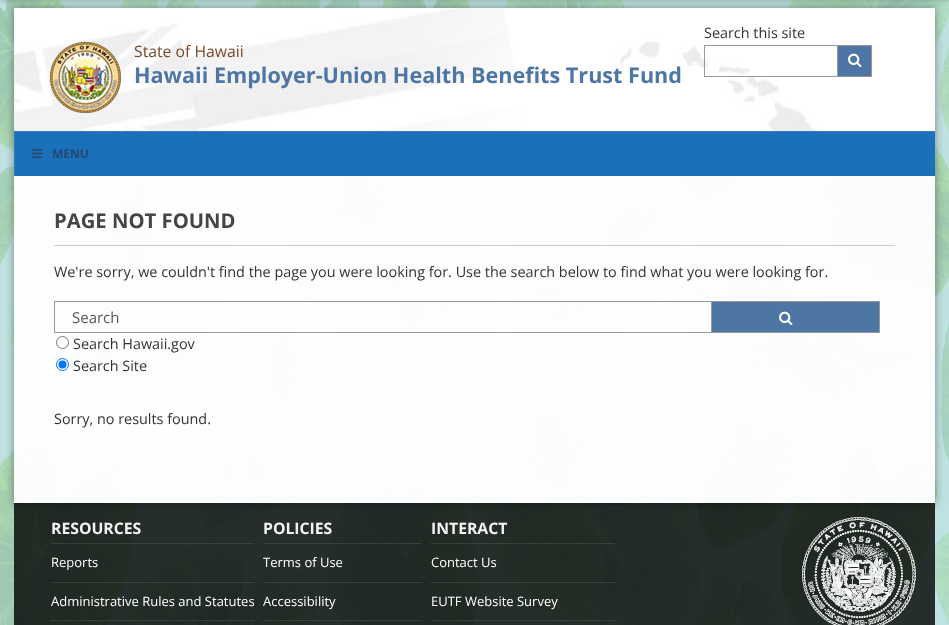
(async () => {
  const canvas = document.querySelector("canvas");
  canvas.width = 949;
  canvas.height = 625;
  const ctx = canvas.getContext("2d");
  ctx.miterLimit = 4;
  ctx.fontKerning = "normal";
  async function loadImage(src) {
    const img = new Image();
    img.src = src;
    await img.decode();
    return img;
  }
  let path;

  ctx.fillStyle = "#ffffff";
  ctx.fillRect(0, 0, 949, 625);
  ctx.drawImage(await loadImage("img/1.png"), 0, 0, 949, 625);
  ctx.fillStyle = "rgba(0, 0, 0, 0.2)";
  ctx.filter = "blur(2.5px)";
  ctx.beginPath();
  ctx.rect(0, -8, 949, 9);
  ctx.fill();
  ctx.filter = "none";
  ctx.save();
  path = new Path2D("M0 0H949V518H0ZM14 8H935V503H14Z");
  ctx.clip(path, "evenodd");
  ctx.fillStyle = "rgba(0, 0, 0, 0.4)";
  ctx.filter = "blur(4.5px)";
  ctx.beginPath();
  ctx.rect(14, 8, 921, 495);
  ctx.fill();
  ctx.filter = "none";
  ctx.restore();
  ctx.fillStyle = "rgba(255, 255, 255, 0.96)";
  ctx.fillRect(14, 176, 921, 327);
  ctx.fillStyle = "#ffffff";
  ctx.fillRect(817, 8, 118, 123);
  ctx.drawImage(await loadImage("img/2.png"), 14, 8, 803, 123);
  ctx.strokeStyle = "#999999";
  ctx.strokeRect(704.5, 45.5, 133, 31);
  for (const [x, y, w, h, color] of [
    [838, 46, 33, 30, "#4d76a4"],
    [838, 45, 34, 1, "#999999"],
    [871, 45, 1, 32, "#999999"],
    [838, 76, 34, 1, "#999999"],
  ]) {
    ctx.fillStyle = color;
    ctx.fillRect(x, y, w, h);
  }
  ctx.drawImage(await loadImage("img/3.png"), 848, 53, 14, 14);
  ctx.drawImage(await loadImage("img/4.png"), 50, 42, 71, 71);
  ctx.fillStyle = "#1b70ba";
  ctx.fillRect(15, 132, 920, 44);
  ctx.save();
  ctx.beginPath();
  ctx.rect(14, 131, 921, 45);
  ctx.clip();
  ctx.fillStyle = "#327ec1";
  path = new Path2D("M-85 32H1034V275H-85ZM15 132H936V177H15Z");
  ctx.fill(path, "evenodd");
  ctx.restore();
  ctx.drawImage(await loadImage("img/5.png"), 32, 148, 11, 11);
  ctx.fillStyle = "#cccccc";
  ctx.fillRect(54, 245, 841, 1);
  ctx.strokeRect(54.5, 301.5, 657, 31);
  for (const [x, y, w, h, color] of [
    [712, 302, 167, 30, "#4d76a4"],
    [712, 301, 168, 1, "#999999"],
    [879, 301, 1, 32, "#999999"],
    [712, 332, 168, 1, "#999999"],
  ]) {
    ctx.fillStyle = color;
    ctx.fillRect(x, y, w, h);
  }
  ctx.drawImage(await loadImage("img/3.png"), 779, 311, 14, 14);
  ctx.fillStyle = "#ffffff";
  ctx.beginPath();
  ctx.arc(62.5, 342.5, 6, 0, Math.PI * 2);
  ctx.fill();
  ctx.strokeStyle = "#767676";
  ctx.stroke();
  ctx.beginPath();
  ctx.arc(62.5, 364.5, 6, 0, Math.PI * 2);
  ctx.fill();
  ctx.strokeStyle = "#0075ff";
  ctx.stroke();
  ctx.fillStyle = "#0075ff";
  ctx.beginPath();
  ctx.arc(62.5, 364.5, 4, 0, Math.PI * 2);
  ctx.fill();
  ctx.fillStyle = "rgba(0, 0, 0, 0.8)";
  ctx.fillRect(14, 503, 921, 122);
  ctx.drawImage(await loadImage("img/6.png"), 802, 517, 114, 108);
  for (const [x, y, w, h, color] of [
    [51, 543, 203, 1, "rgba(255, 255, 255, 0.1)"],
    [51, 581, 203, 1, "rgba(0, 0, 0, 0.1)"],
    [51, 582, 203, 1, "rgba(255, 255, 255, 0.1)"],
    [51, 619, 203, 1, "rgba(0, 0, 0, 0.1)"],
    [51, 620, 203, 1, "rgba(255, 255, 255, 0.1)"],
    [263, 543, 159, 1, "rgba(255, 255, 255, 0.1)"],
    [263, 581, 159, 1, "rgba(0, 0, 0, 0.1)"],
    [263, 582, 159, 1, "rgba(255, 255, 255, 0.1)"],
    [263, 619, 159, 1, "rgba(0, 0, 0, 0.1)"],
    [263, 620, 159, 1, "rgba(255, 255, 255, 0.1)"],
    [431, 543, 184, 1, "rgba(255, 255, 255, 0.1)"],
    [431, 581, 184, 1, "rgba(0, 0, 0, 0.1)"],
    [431, 582, 184, 1, "rgba(255, 255, 255, 0.1)"],
    [431, 619, 184, 1, "rgba(0, 0, 0, 0.1)"],
    [431, 620, 184, 1, "rgba(255, 255, 255, 0.1)"],
  ]) {
    ctx.fillStyle = color;
    ctx.fillRect(x, y, w, h);
  }
  ctx.font = "14.4px Open Sans";
  ctx.fillStyle = "#333333";
  ctx.fillText("Search this site", 704, 38);
  ctx.font = "15.75px Open Sans";
  ctx.fillStyle = "#79482a";
  ctx.fillText("State of Hawaii", 134, 57);
  ctx.font = "bold 21.6px Open Sans";
  ctx.fillStyle = "#4d76a4";
  ctx.fillText("Hawaii Employer-Union Health Benefits Trust Fund", 134, 83);
  ctx.font = "bold 12px Open Sans";
  ctx.fillStyle = "#26486e";
  ctx.fillText("MENU", 52, 158);
  ctx.font = "bold 20.25px Open Sans";
  ctx.fillStyle = "#444444";
  ctx.fillText("PAGE NOT FOUND", 54, 228);
  ctx.font = "14.4px Open Sans";
  ctx.fillStyle = "#333333";
  ctx.fillText("We're sorry, we couldn't find the page you were looking for. Use the search below to find what you were looking for.", 54, 277);
  ctx.font = "15px Open Sans";
  ctx.fillStyle = "#555555";
  ctx.fillText("Search", 72, 323);
  ctx.font = "14.4px Open Sans";
  ctx.fillStyle = "#333333";
  for (const [text, x, y] of [
    ["Search Hawaii.gov", 73, 349],
    ["Search Site", 73, 371],
    ["Sorry, no results found.", 54, 424],
  ]) {
    ctx.fillText(text, x, y);
  }
  ctx.font = "bold 15.75px Open Sans";
  ctx.fillStyle = "#f4f4f4";
  ctx.fillText("RESOURCES", 51, 534);
  ctx.font = "13px Open Sans";
  ctx.fillStyle = "#ffffff";
  ctx.fillText("Reports", 51, 567);
  ctx.fillText("Administrative Rules and Statutes", 51, 606);
  ctx.font = "bold 15.75px Open Sans";
  ctx.fillStyle = "#f4f4f4";
  ctx.fillText("POLICIES", 263, 534);
  ctx.font = "13px Open Sans";
  ctx.fillStyle = "#ffffff";
  ctx.fillText("Terms of Use", 263, 567);
  ctx.fillText("Accessibility", 263, 606);
  ctx.font = "bold 15.75px Open Sans";
  ctx.fillStyle = "#f4f4f4";
  ctx.fillText("INTERACT", 431, 534);
  ctx.font = "13px Open Sans";
  ctx.fillStyle = "#ffffff";
  ctx.fillText("Contact Us", 431, 567);
  ctx.fillText("EUTF Website Survey", 431, 606);
})();
